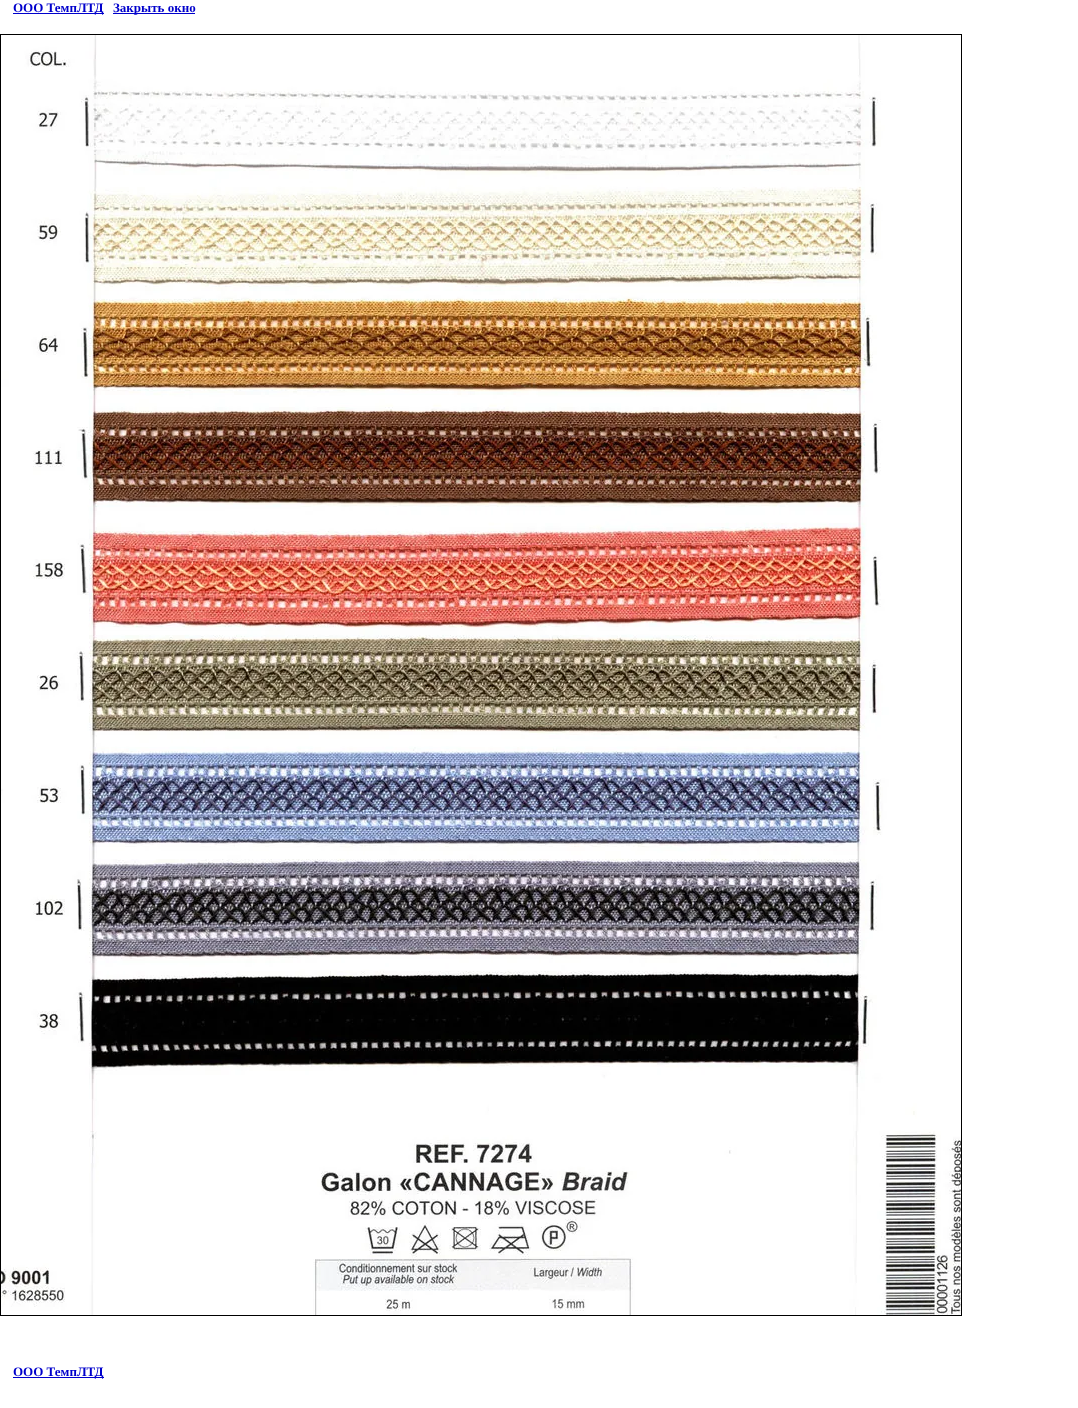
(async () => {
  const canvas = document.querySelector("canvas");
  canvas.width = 1078;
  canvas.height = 1408;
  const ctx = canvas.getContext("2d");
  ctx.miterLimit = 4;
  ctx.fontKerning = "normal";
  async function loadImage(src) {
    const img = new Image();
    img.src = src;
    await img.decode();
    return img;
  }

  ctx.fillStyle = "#ffffff";
  ctx.fillRect(0, 0, 1078, 1408);
  ctx.fillStyle = "#0000cc";
  ctx.fillRect(13, 13, 91, 1);
  ctx.fillRect(113, 13, 82, 1);
  ctx.strokeStyle = "#000000";
  ctx.strokeRect(0.5, 34.5, 961, 1281);
  ctx.drawImage(await loadImage("img/1.png"), 1, 35, 960, 1280);
  ctx.fillRect(13, 1377, 91, 1);
  ctx.font = "bold 13px Liberation Serif";
  for (const [text, x, y] of [
    ["ООО ТемпЛТД", 13, 12],
    ["Закрыть окно", 113, 12],
    ["ООО ТемпЛТД", 13, 1376],
  ]) {
    ctx.fillText(text, x, y);
  }
})();
